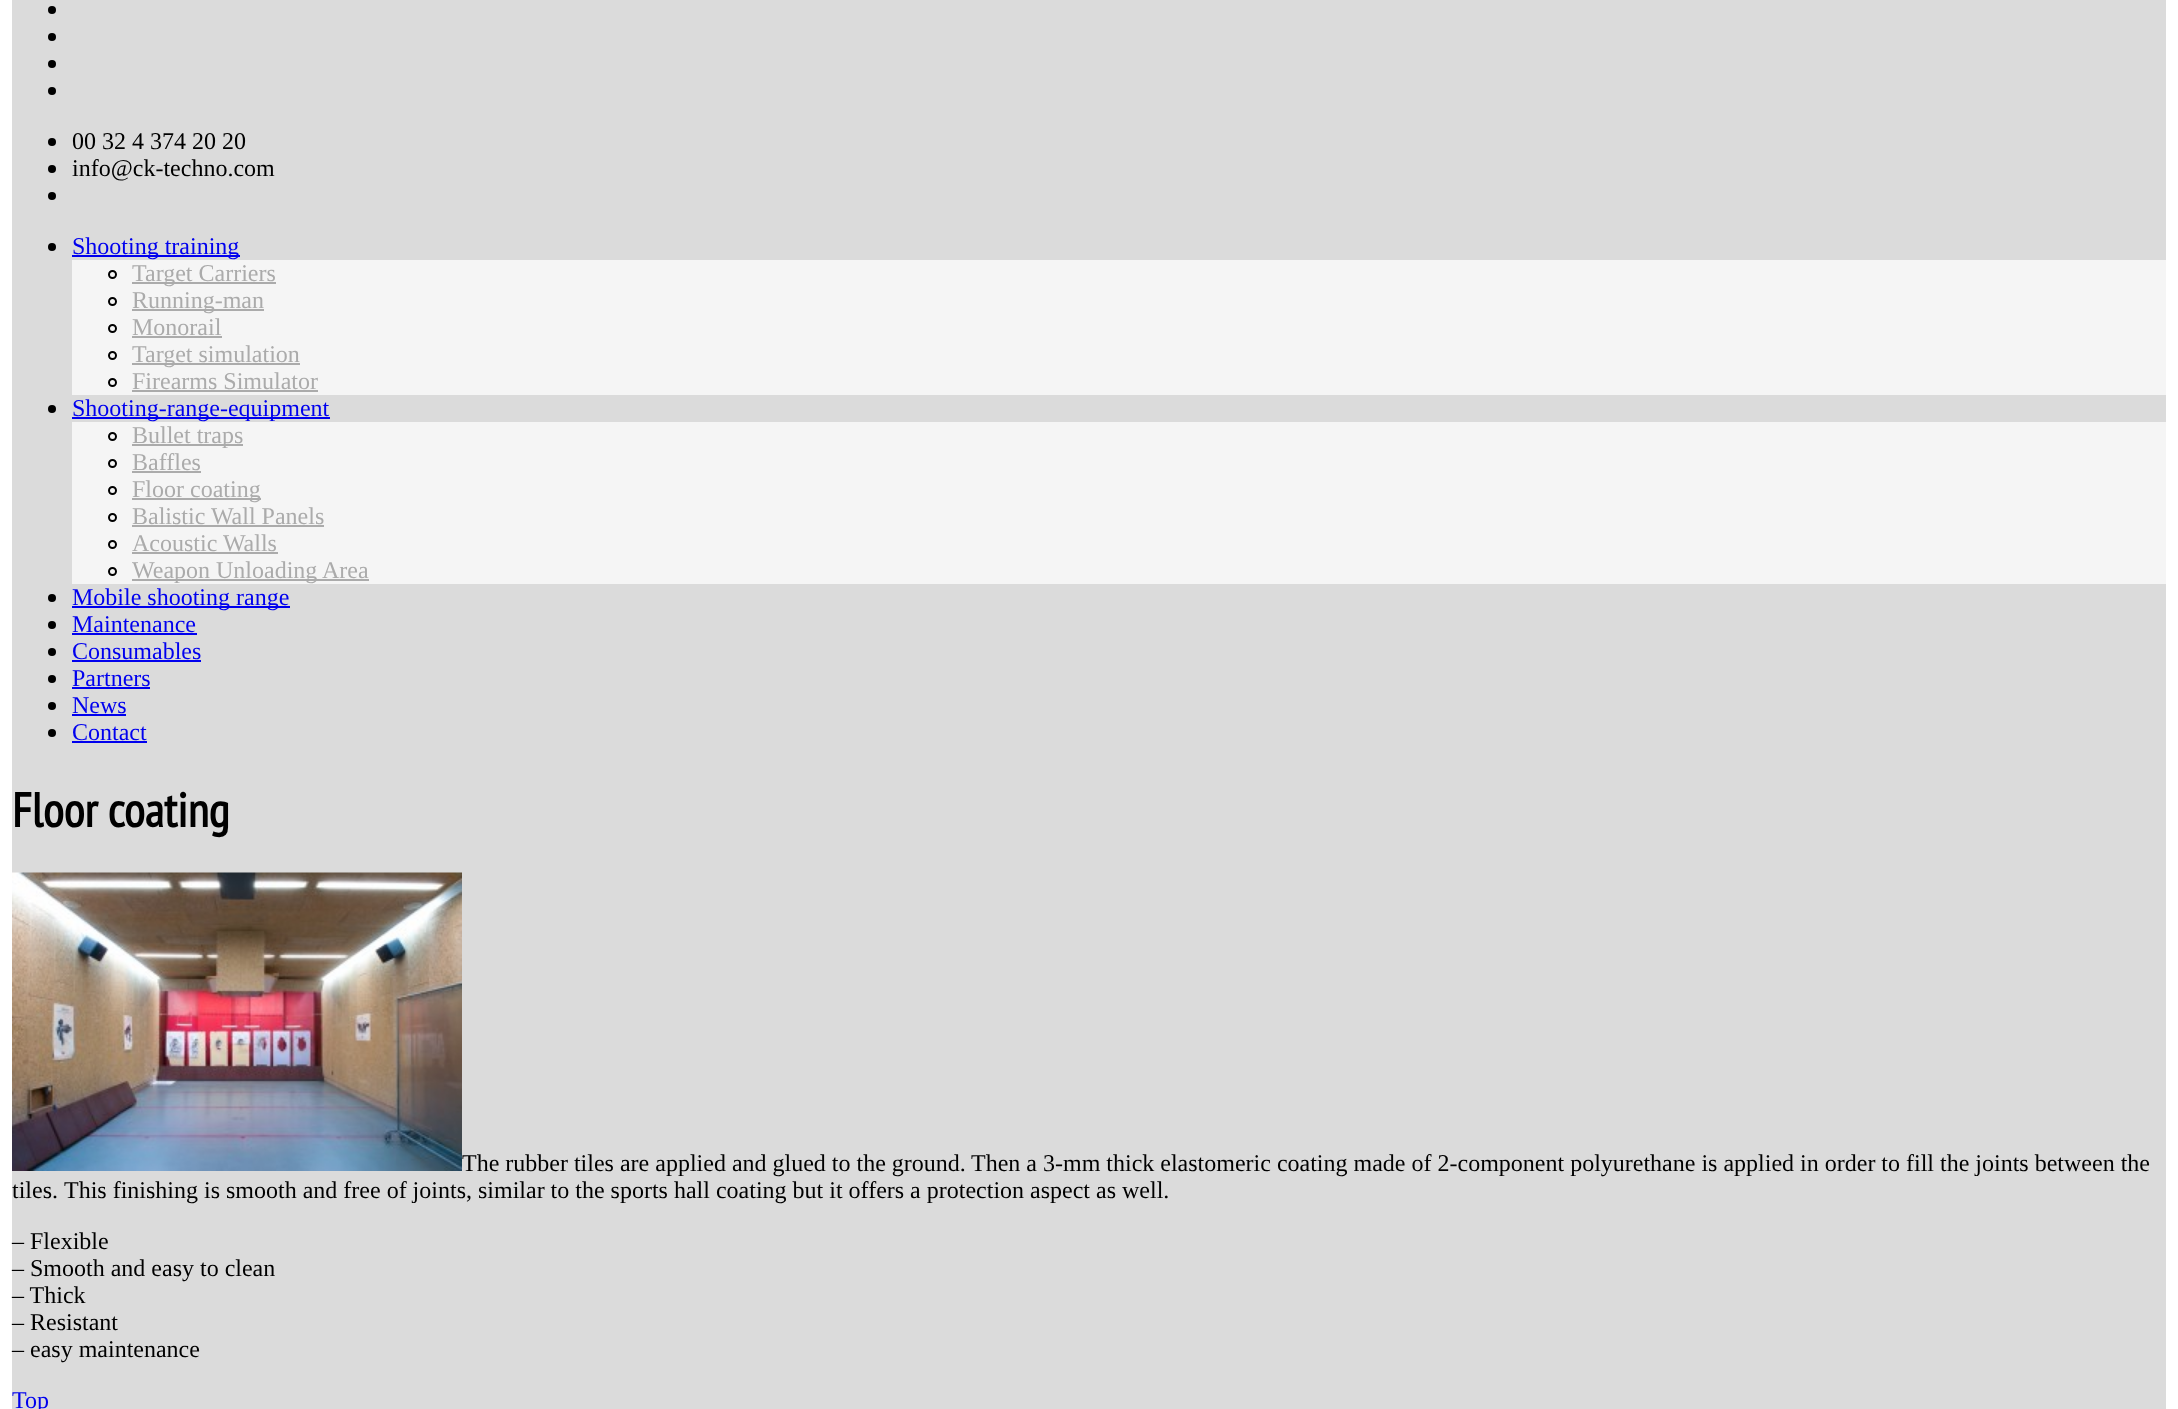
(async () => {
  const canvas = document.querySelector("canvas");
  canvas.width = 2178;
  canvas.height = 1409;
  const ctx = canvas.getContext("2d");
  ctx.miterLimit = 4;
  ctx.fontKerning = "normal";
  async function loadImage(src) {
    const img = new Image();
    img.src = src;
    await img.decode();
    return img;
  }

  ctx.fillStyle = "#ffffff";
  ctx.fillRect(0, 0, 2178, 1409);
  ctx.fillStyle = "#dbdbdb";
  ctx.fillRect(12, 0, 2154, 1409);
  ctx.fillStyle = "#000000";
  ctx.beginPath();
  ctx.arc(52, 10, 4, 0, Math.PI * 2);
  ctx.fill();
  ctx.beginPath();
  ctx.arc(52, 37, 4, 0, Math.PI * 2);
  ctx.fill();
  ctx.beginPath();
  ctx.arc(52, 64, 4, 0, Math.PI * 2);
  ctx.fill();
  ctx.beginPath();
  ctx.arc(52, 91, 4, 0, Math.PI * 2);
  ctx.fill();
  ctx.beginPath();
  ctx.arc(52, 142, 4, 0, Math.PI * 2);
  ctx.fill();
  ctx.beginPath();
  ctx.arc(52, 169, 4, 0, Math.PI * 2);
  ctx.fill();
  ctx.beginPath();
  ctx.arc(52, 196, 4, 0, Math.PI * 2);
  ctx.fill();
  ctx.beginPath();
  ctx.arc(52, 247, 4, 0, Math.PI * 2);
  ctx.fill();
  ctx.fillStyle = "#0000ee";
  ctx.fillRect(72, 255, 168, 2);
  ctx.fillStyle = "#f5f5f5";
  ctx.fillRect(72, 260, 2094, 135);
  ctx.beginPath();
  ctx.arc(112.5, 274.5, 3.5, 0, Math.PI * 2);
  ctx.strokeStyle = "#000000";
  ctx.lineWidth = 2;
  ctx.stroke();
  ctx.fillStyle = "#ababab";
  ctx.fillRect(132, 282, 144, 2);
  ctx.beginPath();
  ctx.arc(112.5, 301.5, 3.5, 0, Math.PI * 2);
  ctx.stroke();
  ctx.fillRect(132, 309, 132, 2);
  ctx.beginPath();
  ctx.arc(112.5, 328.5, 3.5, 0, Math.PI * 2);
  ctx.stroke();
  ctx.fillRect(132, 336, 90, 2);
  ctx.beginPath();
  ctx.arc(112.5, 355.5, 3.5, 0, Math.PI * 2);
  ctx.stroke();
  ctx.fillRect(132, 363, 168, 2);
  ctx.beginPath();
  ctx.arc(112.5, 382.5, 3.5, 0, Math.PI * 2);
  ctx.stroke();
  ctx.fillRect(132, 390, 186, 2);
  ctx.fillStyle = "#000000";
  ctx.beginPath();
  ctx.arc(52, 409, 4, 0, Math.PI * 2);
  ctx.fill();
  ctx.fillStyle = "#0000ee";
  ctx.fillRect(72, 417, 258, 2);
  ctx.fillStyle = "#f5f5f5";
  ctx.fillRect(72, 422, 2094, 162);
  ctx.beginPath();
  ctx.arc(112.5, 436.5, 3.5, 0, Math.PI * 2);
  ctx.stroke();
  ctx.fillStyle = "#ababab";
  ctx.fillRect(132, 444, 111, 2);
  ctx.beginPath();
  ctx.arc(112.5, 463.5, 3.5, 0, Math.PI * 2);
  ctx.stroke();
  ctx.fillRect(132, 471, 69, 2);
  ctx.beginPath();
  ctx.arc(112.5, 490.5, 3.5, 0, Math.PI * 2);
  ctx.stroke();
  ctx.fillRect(132, 498, 129, 2);
  ctx.beginPath();
  ctx.arc(112.5, 517.5, 3.5, 0, Math.PI * 2);
  ctx.stroke();
  ctx.fillRect(132, 525, 192, 2);
  ctx.beginPath();
  ctx.arc(112.5, 544.5, 3.5, 0, Math.PI * 2);
  ctx.stroke();
  ctx.fillRect(132, 552, 146, 2);
  ctx.beginPath();
  ctx.arc(112.5, 571.5, 3.5, 0, Math.PI * 2);
  ctx.stroke();
  ctx.fillRect(132, 579, 237, 2);
  ctx.fillStyle = "#000000";
  ctx.beginPath();
  ctx.arc(52, 598, 4, 0, Math.PI * 2);
  ctx.fill();
  ctx.fillStyle = "#0000ee";
  ctx.fillRect(72, 606, 218, 2);
  ctx.fillStyle = "#000000";
  ctx.beginPath();
  ctx.arc(52, 625, 4, 0, Math.PI * 2);
  ctx.fill();
  ctx.fillStyle = "#0000ee";
  ctx.fillRect(72, 633, 125, 2);
  ctx.fillStyle = "#000000";
  ctx.beginPath();
  ctx.arc(52, 652, 4, 0, Math.PI * 2);
  ctx.fill();
  ctx.fillStyle = "#0000ee";
  ctx.fillRect(72, 660, 129, 2);
  ctx.fillStyle = "#000000";
  ctx.beginPath();
  ctx.arc(52, 679, 4, 0, Math.PI * 2);
  ctx.fill();
  ctx.fillStyle = "#0000ee";
  ctx.fillRect(72, 687, 78, 2);
  ctx.fillStyle = "#000000";
  ctx.beginPath();
  ctx.arc(52, 706, 4, 0, Math.PI * 2);
  ctx.fill();
  ctx.fillStyle = "#0000ee";
  ctx.fillRect(72, 714, 54, 2);
  ctx.fillStyle = "#000000";
  ctx.beginPath();
  ctx.arc(52, 733, 4, 0, Math.PI * 2);
  ctx.fill();
  ctx.fillStyle = "#0000ee";
  ctx.fillRect(72, 741, 75, 2);
  ctx.drawImage(await loadImage("img/1.png"), 12, 872, 450, 299);
  ctx.font = "24px Liberation Serif";
  ctx.fillStyle = "#000000";
  ctx.fillText("00 32 4 374 20 20", 72, 149);
  ctx.fillText("info@ck-techno.com", 72, 176);
  ctx.fillStyle = "#0000ee";
  ctx.fillText("Shooting training", 72, 254);
  ctx.fillStyle = "#ababab";
  for (const [text, x, y] of [
    ["Target Carriers", 132, 281],
    ["Running-man", 132, 308],
    ["Monorail", 132, 335],
    ["Target simulation", 132, 362],
    ["Firearms Simulator", 132, 389],
  ]) {
    ctx.fillText(text, x, y);
  }
  ctx.fillStyle = "#0000ee";
  ctx.fillText("Shooting-range-equipment", 72, 416);
  ctx.fillStyle = "#ababab";
  for (const [text, x, y] of [
    ["Bullet traps", 132, 443],
    ["Baffles", 132, 470],
    ["Floor coating", 132, 497],
    ["Balistic Wall Panels", 132, 524],
    ["Acoustic Walls", 132, 551],
    ["Weapon Unloading Area", 132, 578],
  ]) {
    ctx.fillText(text, x, y);
  }
  ctx.fillStyle = "#0000ee";
  for (const [text, x, y] of [
    ["Mobile shooting range", 72, 605],
    ["Maintenance", 72, 632],
    ["Consumables", 72, 659],
    ["Partners", 72, 686],
    ["News", 72, 713],
    ["Contact", 72, 740],
  ]) {
    ctx.fillText(text, x, y);
  }
  ctx.font = "bold 48px PT Sans Narrow";
  ctx.fillStyle = "#000000";
  ctx.fillText("Floor coating", 12, 827);
  ctx.font = "24px Liberation Serif";
  for (const [text, x, y] of [
    ["The rubber tiles are applied and glued to the ground.", 462, 1171],
    ["Then a 3-mm thick elastomeric coating made of 2-component polyurethane is applied in order to fill the joints between the", 971, 1171],
    ["tiles.", 12, 1198],
    ["This finishing is smooth and free of joints, similar to the sports hall coating but it offers a protection aspect as well.", 64, 1198],
    ["– Flexible", 12, 1249],
    ["– Smooth and easy to clean", 12, 1276],
    ["– Thick", 12, 1303],
    ["– Resistant", 12, 1330],
    ["– easy maintenance", 12, 1357],
  ]) {
    ctx.fillText(text, x, y);
  }
  ctx.fillStyle = "#0000ee";
  ctx.fillText("Top", 12, 1408);
})();
